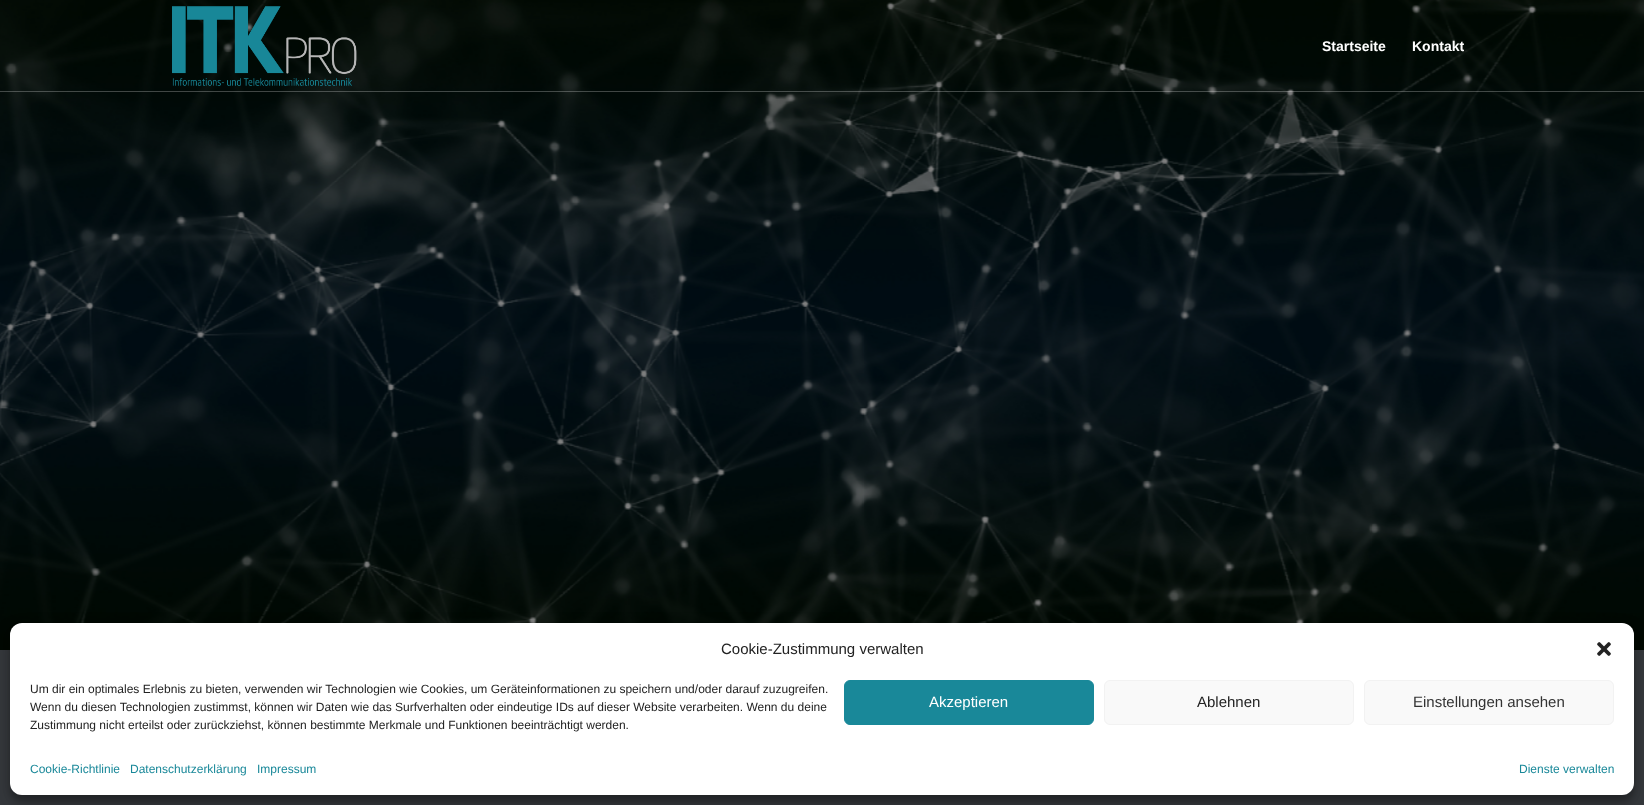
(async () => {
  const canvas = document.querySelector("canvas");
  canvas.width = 1644;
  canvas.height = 805;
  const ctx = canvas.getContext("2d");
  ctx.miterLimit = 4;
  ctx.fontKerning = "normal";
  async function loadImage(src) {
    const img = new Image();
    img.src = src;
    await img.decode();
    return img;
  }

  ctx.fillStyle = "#35383c";
  ctx.fillRect(0, 0, 1644, 805);
  ctx.drawImage(await loadImage("img/1.png"), 0, 0, 1644, 650);
  ctx.fillStyle = "rgba(255, 255, 255, 0.25)";
  ctx.fillRect(0, 91, 1644, 1);
  ctx.drawImage(await loadImage("img/2.png"), 172, 6, 185, 80);
  ctx.fillStyle = "rgba(0, 0, 0, 0.23)";
  ctx.filter = "blur(3px)";
  ctx.beginPath();
  ctx.roundRect(10, 629, 1624, 172, 12);
  ctx.fill();
  ctx.filter = "none";
  ctx.fillStyle = "rgba(0, 0, 0, 0.19)";
  ctx.filter = "blur(10px)";
  ctx.beginPath();
  ctx.roundRect(10, 633, 1624, 172, 12);
  ctx.fill();
  ctx.filter = "none";
  ctx.fillStyle = "#ffffff";
  ctx.beginPath();
  ctx.roundRect(10, 623, 1624, 172, 12);
  ctx.fill();
  ctx.drawImage(await loadImage("img/3.png"), 1597, 642, 14, 14);
  ctx.fillStyle = "#198899";
  ctx.beginPath();
  ctx.roundRect(844.5, 680.5, 249, 44, 5.5);
  ctx.fill();
  ctx.strokeStyle = "#198899";
  ctx.stroke();
  ctx.fillStyle = "#f9f9f9";
  ctx.beginPath();
  ctx.roundRect(1104.5, 680.5, 249, 44, 5.5);
  ctx.fill();
  ctx.strokeStyle = "#f2f2f2";
  ctx.stroke();
  ctx.beginPath();
  ctx.roundRect(1364.5, 680.5, 249, 44, 5.5);
  ctx.fill();
  ctx.stroke();
  ctx.font = "bold 14px Liberation Sans";
  ctx.fillStyle = "#ffffff";
  ctx.fillText("Startseite", 1322, 51);
  ctx.fillText("Kontakt", 1412, 51);
  ctx.font = "15px Liberation Sans";
  ctx.fillStyle = "#222222";
  ctx.fillText("Cookie-Zustimmung verwalten", 721, 654);
  ctx.font = "12px Liberation Sans";
  for (const [text, x, y] of [
    ["Um dir ein optimales Erlebnis zu bieten, verwenden wir Technologien wie Cookies, um Geräteinformationen zu speichern und/oder darauf zuzugreifen.", 30, 693],
    ["Wenn du diesen Technologien zustimmst, können wir Daten wie das Surfverhalten oder eindeutige IDs auf dieser Website verarbeiten. Wenn du deine", 30, 711],
    ["Zustimmung nicht erteilst oder zurückziehst, können bestimmte Merkmale und Funktionen beeinträchtigt werden.", 30, 729],
  ]) {
    ctx.fillText(text, x, y);
  }
  ctx.font = "15px Liberation Sans";
  ctx.fillStyle = "#ffffff";
  ctx.fillText("Akzeptieren", 929, 707);
  ctx.fillStyle = "#222222";
  ctx.fillText("Ablehnen", 1197, 707);
  ctx.fillStyle = "#333333";
  ctx.fillText("Einstellungen ansehen", 1413, 707);
  ctx.font = "12px Liberation Sans";
  ctx.fillStyle = "#198899";
  for (const [text, x, y] of [
    ["Cookie-Richtlinie", 30, 773],
    ["Datenschutzerklärung", 130, 773],
    ["Impressum", 257, 773],
    ["Dienste verwalten", 1519, 773],
  ]) {
    ctx.fillText(text, x, y);
  }
})();
